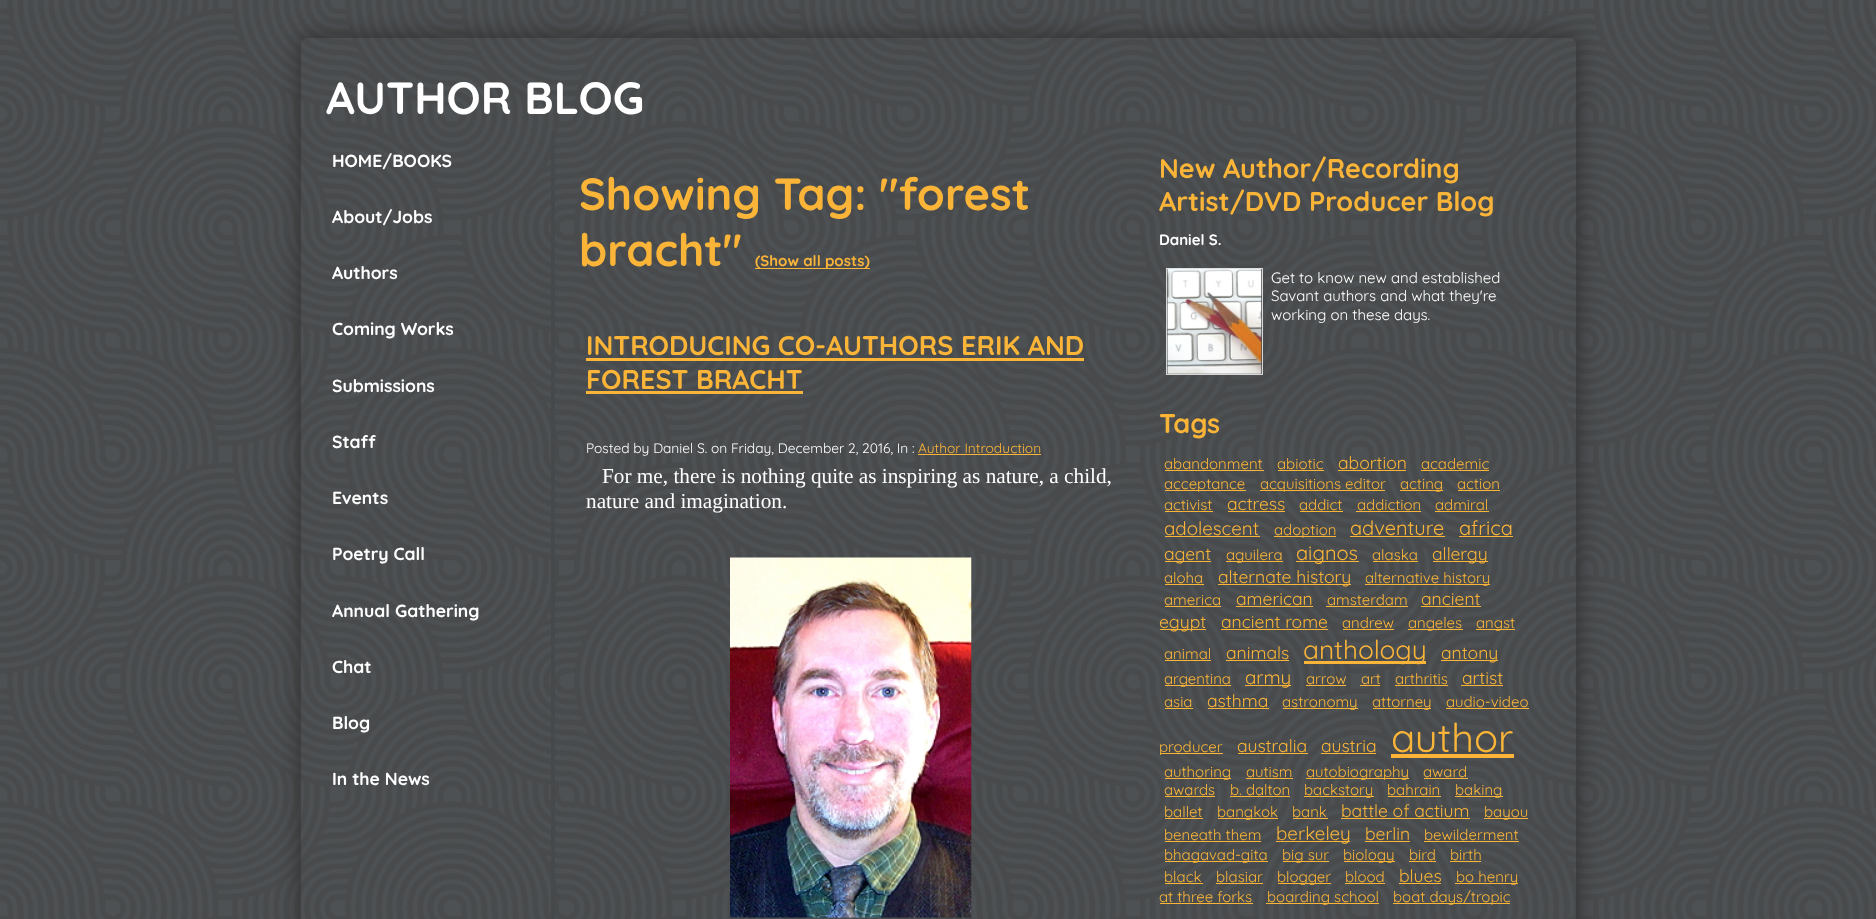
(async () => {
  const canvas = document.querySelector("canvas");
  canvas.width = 1876;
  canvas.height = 919;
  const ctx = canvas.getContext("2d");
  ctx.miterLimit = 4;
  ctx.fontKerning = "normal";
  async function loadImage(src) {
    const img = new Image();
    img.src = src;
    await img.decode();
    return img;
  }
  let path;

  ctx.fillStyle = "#333333";
  ctx.fillRect(0, 0, 1876, 919);
  ctx.drawImage(await loadImage("img/1.png"), 0, 0, 1876, 919);
  ctx.save();
  path = new Path2D("M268 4H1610V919H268ZM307 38H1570C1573.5 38 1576 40.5 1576 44V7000C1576 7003.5 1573.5 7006 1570 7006H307C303.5 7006 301 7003.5 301 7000V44C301 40.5 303.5 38 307 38Z");
  ctx.clip(path, "evenodd");
  ctx.filter = "blur(10px)";
  ctx.beginPath();
  ctx.roundRect(299, 35, 1280, 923, 9);
  ctx.fill();
  ctx.filter = "none";
  ctx.restore();
  for (const [x, y, w, h, color] of [
    [551, 131, 4, 788, "#45494c"],
    [755, 268, 115, 1, "#fab539"],
    [586, 358, 498, 3, "#fab539"],
    [586, 391, 217, 3, "#fab539"],
    [918, 454, 123, 1, "#fab539"],
  ]) {
    ctx.fillStyle = color;
    ctx.fillRect(x, y, w, h);
  }
  ctx.drawImage(await loadImage("img/2.png"), 730, 557, 242, 361);
  ctx.strokeStyle = "#d7d7d7";
  ctx.strokeRect(1166.5, 268.5, 96, 106);
  ctx.drawImage(await loadImage("img/3.png"), 1167, 268, 95, 106);
  for (const [x, y, w, h, color] of [
    [1165, 470, 99, 1, "#fab539"],
    [1278, 470, 46, 1, "#fab539"],
    [1338, 470, 68, 1, "#fab539"],
    [1421, 470, 68, 1, "#fab539"],
    [1165, 490, 81, 1, "#fab539"],
    [1260, 490, 125, 1, "#fab539"],
    [1400, 490, 43, 1, "#fab539"],
    [1458, 490, 42, 1, "#fab539"],
    [1165, 511, 48, 1, "#fab539"],
    [1228, 511, 57, 1, "#fab539"],
    [1300, 511, 43, 1, "#fab539"],
    [1356, 511, 65, 1, "#fab539"],
    [1435, 511, 54, 1, "#fab539"],
    [1165, 536, 95, 1, "#fab539"],
    [1274, 536, 62, 1, "#fab539"],
    [1350, 536, 95, 1, "#fab539"],
    [1459, 536, 54, 1, "#fab539"],
    [1165, 561, 46, 1, "#fab539"],
    [1226, 561, 57, 1, "#fab539"],
    [1296, 561, 63, 1, "#fab539"],
    [1373, 561, 45, 1, "#fab539"],
    [1433, 561, 55, 1, "#fab539"],
    [1165, 584, 39, 1, "#fab539"],
    [1218, 584, 133, 1, "#fab539"],
    [1365, 584, 125, 1, "#fab539"],
    [1165, 606, 56, 1, "#fab539"],
    [1236, 606, 77, 1, "#fab539"],
    [1326, 606, 82, 1, "#fab539"],
    [1421, 606, 60, 1, "#fab539"],
    [1160, 629, 46, 1, "#fab539"],
    [1221, 629, 107, 1, "#fab539"],
    [1343, 629, 51, 1, "#fab539"],
    [1408, 629, 55, 1, "#fab539"],
    [1476, 629, 39, 1, "#fab539"],
    [1165, 660, 46, 1, "#fab539"],
    [1226, 660, 63, 1, "#fab539"],
    [1304, 661, 122, 3, "#fab539"],
    [1441, 660, 57, 1, "#fab539"],
    [1165, 685, 66, 1, "#fab539"],
    [1245, 685, 46, 1, "#fab539"],
    [1306, 685, 40, 1, "#fab539"],
    [1360, 685, 20, 1, "#fab539"],
    [1395, 685, 53, 1, "#fab539"],
    [1461, 685, 42, 1, "#fab539"],
    [1165, 708, 28, 1, "#fab539"],
    [1208, 708, 61, 1, "#fab539"],
    [1283, 708, 75, 1, "#fab539"],
    [1373, 708, 58, 1, "#fab539"],
    [1446, 708, 83, 1, "#fab539"],
    [1160, 753, 63, 1, "#fab539"],
    [1238, 753, 70, 1, "#fab539"],
    [1321, 753, 55, 1, "#fab539"],
    [1391, 754, 123, 4, "#fab539"],
    [1165, 778, 66, 1, "#fab539"],
    [1246, 778, 47, 1, "#fab539"],
    [1306, 778, 103, 1, "#fab539"],
    [1424, 778, 44, 1, "#fab539"],
    [1165, 796, 50, 1, "#fab539"],
    [1230, 796, 60, 1, "#fab539"],
    [1304, 796, 70, 1, "#fab539"],
    [1388, 796, 53, 1, "#fab539"],
    [1455, 796, 48, 1, "#fab539"],
    [1165, 818, 38, 1, "#fab539"],
    [1218, 818, 60, 1, "#fab539"],
    [1293, 818, 35, 1, "#fab539"],
    [1341, 818, 129, 1, "#fab539"],
    [1484, 818, 44, 1, "#fab539"],
    [1165, 841, 96, 1, "#fab539"],
    [1276, 841, 74, 1, "#fab539"],
    [1365, 841, 45, 1, "#fab539"],
    [1424, 841, 95, 1, "#fab539"],
    [1165, 861, 103, 1, "#fab539"],
    [1283, 861, 46, 1, "#fab539"],
    [1344, 861, 51, 1, "#fab539"],
    [1409, 861, 27, 1, "#fab539"],
    [1450, 861, 31, 1, "#fab539"],
    [1165, 883, 38, 1, "#fab539"],
    [1216, 883, 47, 1, "#fab539"],
    [1278, 883, 53, 1, "#fab539"],
    [1345, 883, 40, 1, "#fab539"],
    [1399, 883, 42, 1, "#fab539"],
    [1455, 883, 63, 1, "#fab539"],
    [1160, 903, 93, 1, "#fab539"],
    [1266, 903, 113, 1, "#fab539"],
    [1393, 903, 117, 1, "#fab539"],
  ]) {
    ctx.fillStyle = color;
    ctx.fillRect(x, y, w, h);
  }
  ctx.font = "bold 45px Quicksand";
  ctx.fillStyle = "#ffffff";
  ctx.fillText("AUTHOR BLOG", 326, 114);
  ctx.font = "bold 17.5px Quicksand";
  for (const [text, x, y] of [
    ["HOME/BOOKS", 332, 167],
    ["About/Jobs", 332, 223],
    ["Authors", 332, 279],
    ["Coming Works", 332, 335],
    ["Submissions", 332, 392],
    ["Staff", 332, 448],
    ["Events", 332, 504],
    ["Poetry Call", 332, 560],
    ["Annual Gathering", 332, 617],
    ["Chat", 332, 673],
    ["Blog", 332, 729],
    ["In the News", 332, 785],
  ]) {
    ctx.fillText(text, x, y);
  }
  ctx.font = "bold 45px Quicksand";
  ctx.fillStyle = "#fab539";
  ctx.fillText("Showing Tag: \"forest", 579, 210);
  ctx.fillText("bracht\"", 579, 266);
  ctx.font = "bold 15px Quicksand";
  ctx.fillText("(Show all posts)", 755, 266);
  ctx.font = "bold 27px Quicksand";
  ctx.fillText("INTRODUCING CO-AUTHORS ERIK AND", 586, 355);
  ctx.fillText("FOREST BRACHT", 586, 389);
  ctx.font = "13.75px Quicksand";
  ctx.fillStyle = "#ffffff";
  ctx.fillText("Posted by Daniel S. on Friday, December 2, 2016, In :", 586, 453);
  ctx.fillStyle = "#fab539";
  ctx.fillText("Author Introduction", 918, 453);
  ctx.font = "21.25px Liberation Serif";
  ctx.fillStyle = "#ffffff";
  ctx.fillText("For me, there is nothing quite as inspiring as nature, a child,", 602, 483);
  ctx.fillText("nature and imagination.", 586, 508);
  ctx.font = "bold 27px Quicksand";
  ctx.fillStyle = "#fab539";
  ctx.fillText("New Author/Recording", 1159, 178);
  ctx.fillText("Artist/DVD Producer Blog", 1159, 211);
  ctx.font = "bold 15px Quicksand";
  ctx.fillStyle = "#ffffff";
  ctx.fillText("Daniel S.", 1159, 245);
  ctx.font = "15px Quicksand";
  for (const [text, x, y] of [
    ["Get to know new and established", 1271, 283],
    ["Savant authors and what they're", 1271, 301],
    ["working on these days.", 1271, 320],
  ]) {
    ctx.fillText(text, x, y);
  }
  ctx.font = "bold 27px Quicksand";
  ctx.fillStyle = "#fab539";
  ctx.fillText("Tags", 1159, 433);
  ctx.font = "15px Quicksand";
  ctx.fillText("abandonment", 1164, 469);
  ctx.fillText("abiotic", 1277, 469);
  ctx.font = "17.5px Quicksand";
  ctx.fillText("abortion", 1338, 469);
  ctx.font = "15px Quicksand";
  for (const [text, x, y] of [
    ["academic", 1421, 469],
    ["acceptance", 1164, 489],
    ["acquisitions editor", 1260, 489],
    ["acting", 1400, 489],
    ["action", 1457, 489],
    ["activist", 1164, 510],
  ]) {
    ctx.fillText(text, x, y);
  }
  ctx.font = "17.5px Quicksand";
  ctx.fillText("actress", 1227, 510);
  ctx.font = "15px Quicksand";
  for (const [text, x, y] of [
    ["addict", 1299, 510],
    ["addiction", 1357, 510],
    ["admiral", 1435, 510],
  ]) {
    ctx.fillText(text, x, y);
  }
  ctx.font = "18.75px Quicksand";
  ctx.fillText("adolescent", 1164, 535);
  ctx.font = "15px Quicksand";
  ctx.fillText("adoption", 1274, 535);
  ctx.font = "20px Quicksand";
  ctx.fillText("adventure", 1350, 535);
  ctx.fillText("africa", 1459, 535);
  ctx.font = "17.5px Quicksand";
  ctx.fillText("agent", 1164, 560);
  ctx.font = "15px Quicksand";
  ctx.fillText("aguilera", 1226, 560);
  ctx.font = "20px Quicksand";
  ctx.fillText("aignos", 1296, 560);
  ctx.font = "15px Quicksand";
  ctx.fillText("alaska", 1372, 560);
  ctx.font = "17.5px Quicksand";
  ctx.fillText("allergy", 1432, 560);
  ctx.font = "15px Quicksand";
  ctx.fillText("aloha", 1164, 583);
  ctx.font = "17.5px Quicksand";
  ctx.fillText("alternate history", 1218, 583);
  ctx.font = "15px Quicksand";
  ctx.fillText("alternative history", 1365, 583);
  ctx.fillText("america", 1164, 605);
  ctx.font = "17.5px Quicksand";
  ctx.fillText("american", 1236, 605);
  ctx.font = "15px Quicksand";
  ctx.fillText("amsterdam", 1327, 605);
  ctx.font = "17.5px Quicksand";
  for (const [text, x, y] of [
    ["ancient", 1421, 605],
    ["egypt", 1159, 628],
    ["ancient rome", 1221, 628],
  ]) {
    ctx.fillText(text, x, y);
  }
  ctx.font = "15px Quicksand";
  for (const [text, x, y] of [
    ["andrew", 1342, 628],
    ["angeles", 1408, 628],
    ["angst", 1476, 628],
    ["animal", 1164, 659],
  ]) {
    ctx.fillText(text, x, y);
  }
  ctx.font = "17.5px Quicksand";
  ctx.fillText("animals", 1226, 659);
  ctx.font = "26.25px Quicksand";
  ctx.fillText("anthology", 1303, 659);
  ctx.font = "17.5px Quicksand";
  ctx.fillText("antony", 1441, 659);
  ctx.font = "15px Quicksand";
  ctx.fillText("argentina", 1164, 684);
  ctx.font = "18.75px Quicksand";
  ctx.fillText("army", 1245, 684);
  ctx.font = "15px Quicksand";
  for (const [text, x, y] of [
    ["arrow", 1306, 684],
    ["art", 1361, 684],
    ["arthritis", 1395, 684],
  ]) {
    ctx.fillText(text, x, y);
  }
  ctx.font = "17.5px Quicksand";
  ctx.fillText("artist", 1462, 684);
  ctx.font = "15px Quicksand";
  ctx.fillText("asia", 1164, 707);
  ctx.font = "17.5px Quicksand";
  ctx.fillText("asthma", 1207, 707);
  ctx.font = "15px Quicksand";
  for (const [text, x, y] of [
    ["astronomy", 1282, 707],
    ["attorney", 1372, 707],
    ["audio-video", 1446, 707],
    ["producer", 1159, 752],
  ]) {
    ctx.fillText(text, x, y);
  }
  ctx.font = "17.5px Quicksand";
  ctx.fillText("australia", 1237, 752);
  ctx.fillText("austria", 1321, 752);
  ctx.font = "40px Quicksand";
  ctx.fillText("author", 1391, 752);
  ctx.font = "15px Quicksand";
  for (const [text, x, y] of [
    ["authoring", 1164, 777],
    ["autism", 1246, 777],
    ["autobiography", 1306, 777],
    ["award", 1423, 777],
    ["awards", 1164, 795],
    ["b. dalton", 1230, 795],
    ["backstory", 1304, 795],
    ["bahrain", 1387, 795],
    ["baking", 1455, 795],
    ["ballet", 1164, 817],
    ["bangkok", 1217, 817],
    ["bank", 1292, 817],
  ]) {
    ctx.fillText(text, x, y);
  }
  ctx.font = "17.5px Quicksand";
  ctx.fillText("battle of actium", 1341, 817);
  ctx.font = "15px Quicksand";
  ctx.fillText("bayou", 1484, 817);
  ctx.fillText("beneath them", 1164, 840);
  ctx.font = "18.75px Quicksand";
  ctx.fillText("berkeley", 1276, 840);
  ctx.font = "17.5px Quicksand";
  ctx.fillText("berlin", 1365, 840);
  ctx.font = "15px Quicksand";
  for (const [text, x, y] of [
    ["bewilderment", 1424, 840],
    ["bhagavad-gita", 1164, 860],
    ["big sur", 1282, 860],
    ["biology", 1343, 860],
    ["bird", 1409, 860],
    ["birth", 1450, 860],
    ["black", 1164, 882],
    ["blasiar", 1216, 882],
    ["blogger", 1277, 882],
    ["blood", 1345, 882],
  ]) {
    ctx.fillText(text, x, y);
  }
  ctx.font = "17.5px Quicksand";
  ctx.fillText("blues", 1399, 882);
  ctx.font = "15px Quicksand";
  for (const [text, x, y] of [
    ["bo henry", 1456, 882],
    ["at three forks", 1159, 902],
    ["boarding school", 1267, 902],
    ["boat days/tropic", 1393, 902],
  ]) {
    ctx.fillText(text, x, y);
  }
})();
